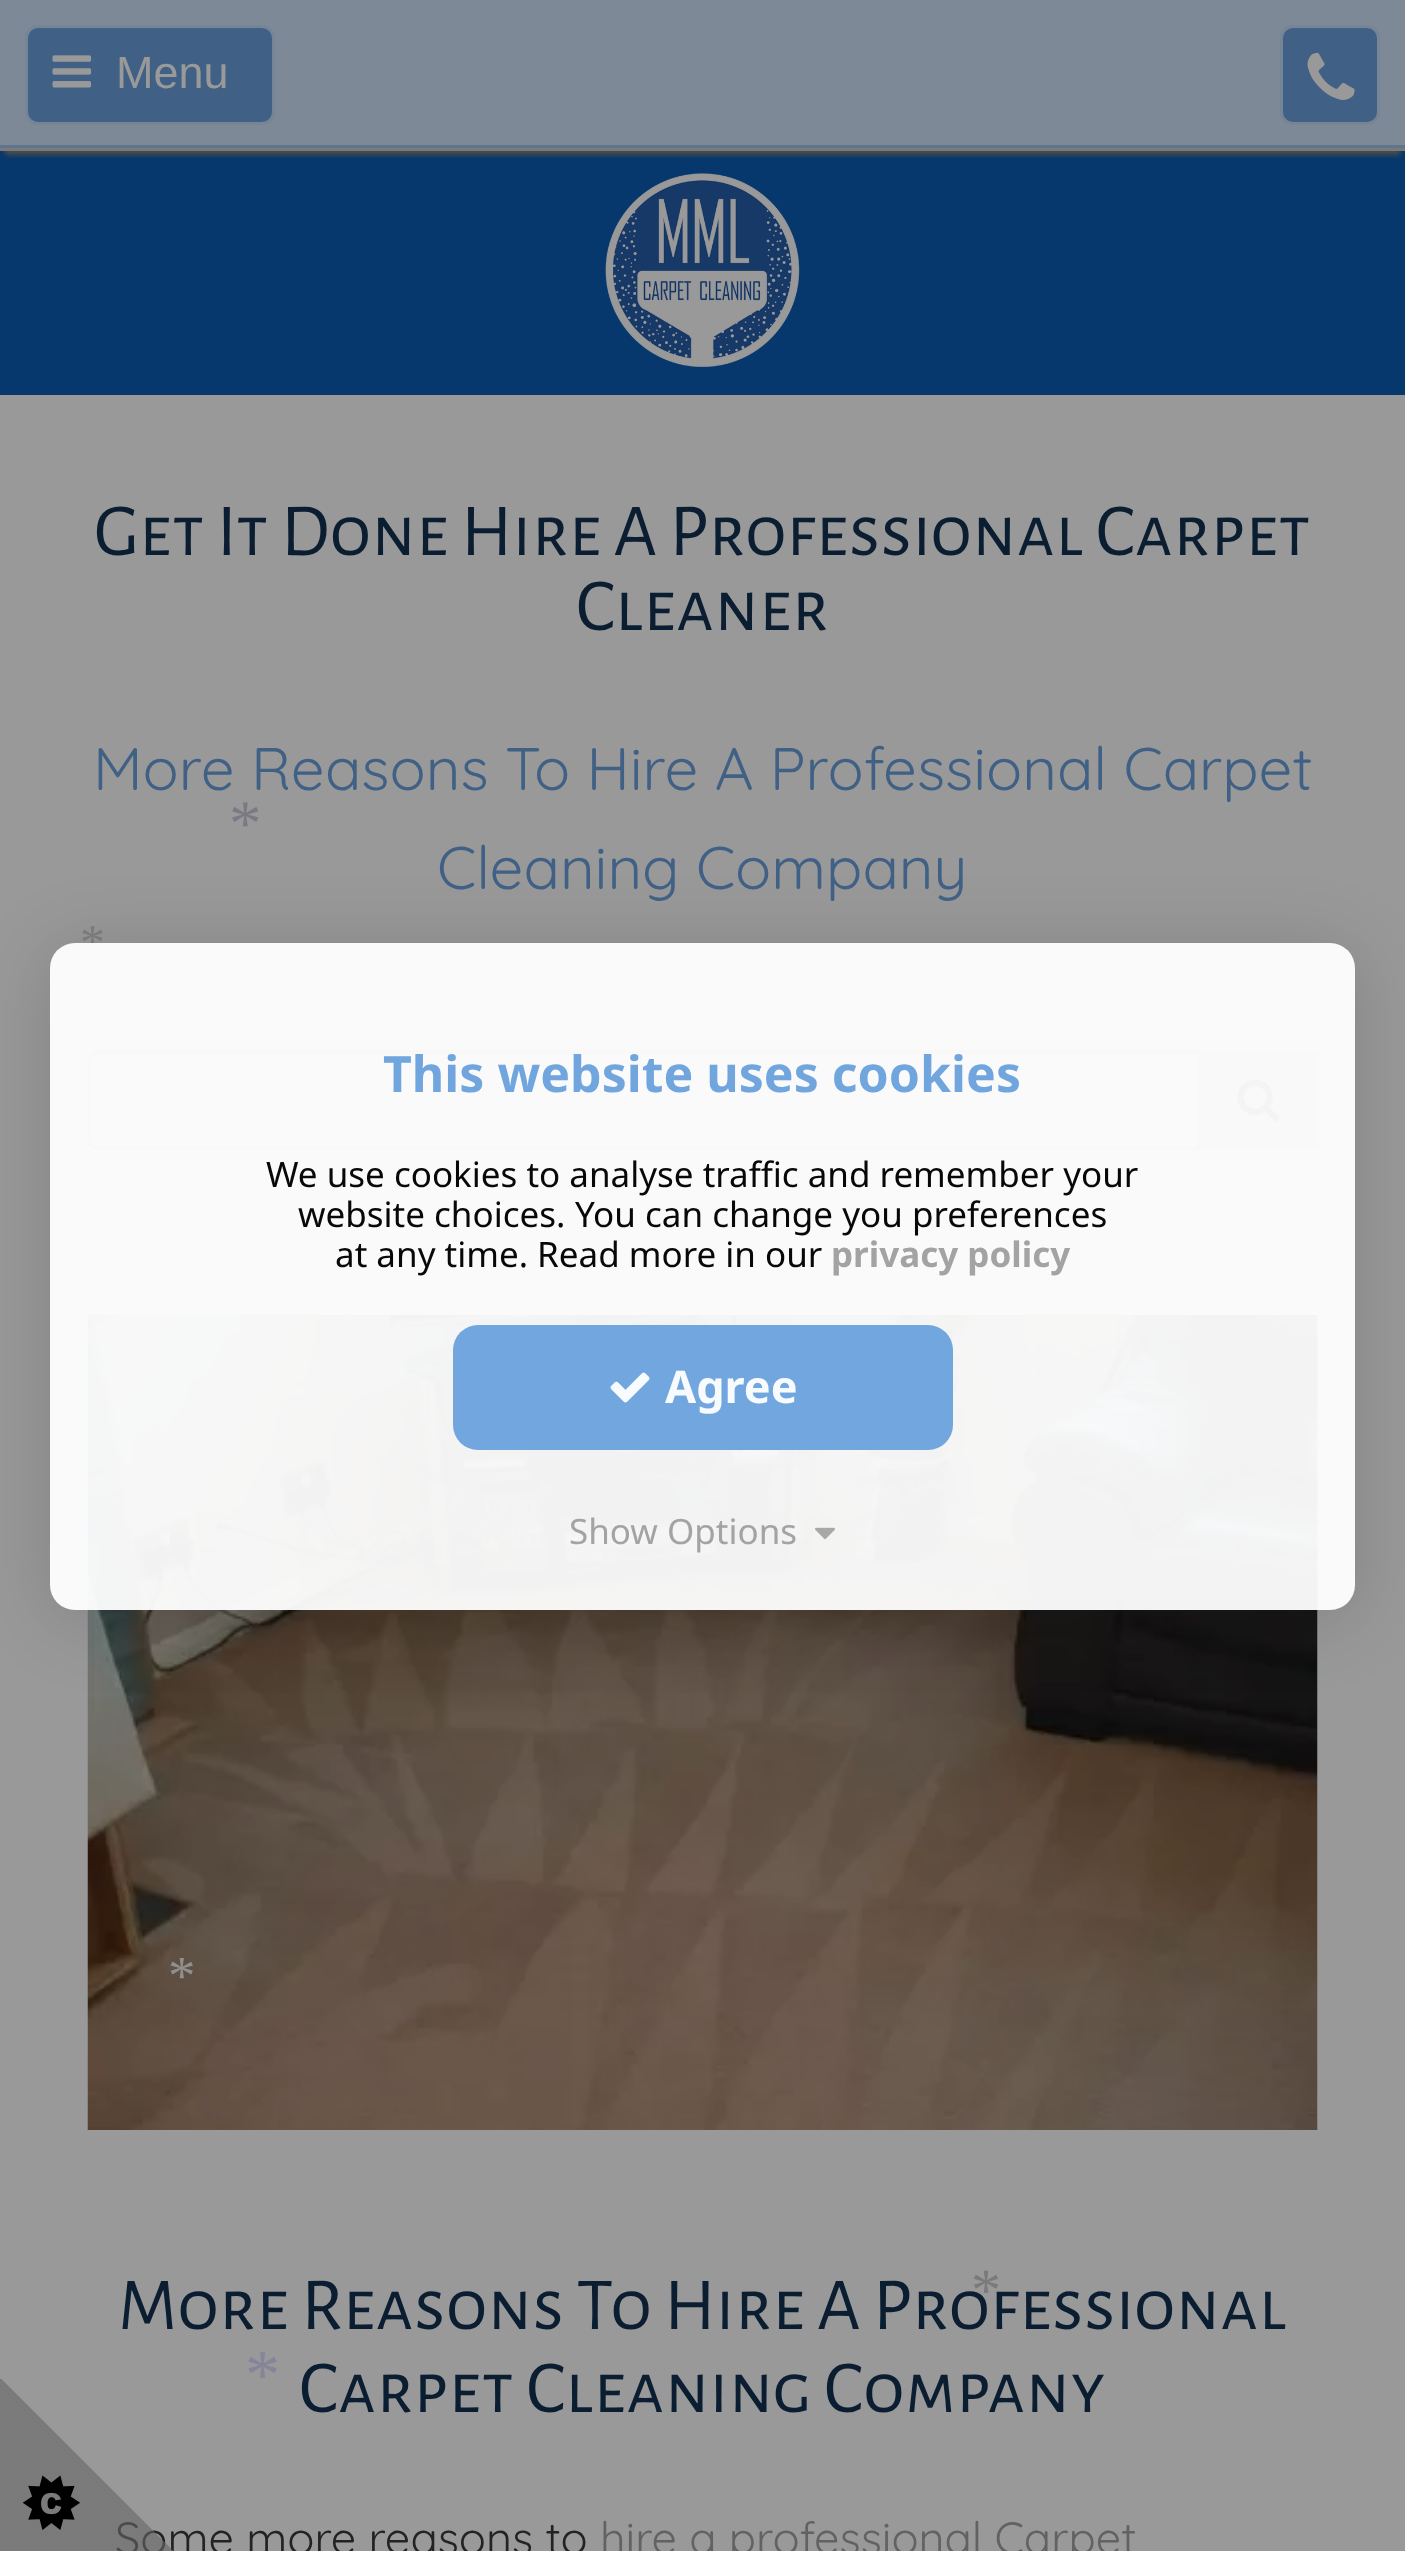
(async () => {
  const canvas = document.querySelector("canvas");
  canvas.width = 1405;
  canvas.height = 2551;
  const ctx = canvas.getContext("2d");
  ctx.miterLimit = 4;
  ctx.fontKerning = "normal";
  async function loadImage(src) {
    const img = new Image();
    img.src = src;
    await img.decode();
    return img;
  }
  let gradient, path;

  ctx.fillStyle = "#999999";
  ctx.fillRect(0, 0, 1405, 2551);
  for (const [x, y, w, h, color] of [
    [0, 0, 1405, 145, "#7d8996"],
    [0, 151, 1405, 244, "#07386d"],
    [0, 145, 1405, 3, "#5f758e"],
  ]) {
    ctx.fillStyle = color;
    ctx.fillRect(x, y, w, h);
  }
  ctx.save();
  ctx.beginPath();
  ctx.rect(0, 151, 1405, 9);
  ctx.clip();
  ctx.fillStyle = "#4d4d4d";
  ctx.filter = "blur(2.5px)";
  ctx.beginPath();
  ctx.rect(5, 15, 1395, 140);
  ctx.fill();
  ctx.filter = "none";
  ctx.restore();
  ctx.fillStyle = "#7a7a7a";
  ctx.fillRect(0, 148, 1405, 3);
  ctx.fillStyle = "#406185";
  ctx.beginPath();
  ctx.roundRect(26.5, 26.5, 247, 97, 11.5);
  ctx.fill();
  ctx.strokeStyle = "#768595";
  ctx.lineWidth = 3;
  ctx.stroke();
  ctx.drawImage(await loadImage("img/1.png"), 52, 55, 40, 33);
  ctx.beginPath();
  ctx.roundRect(1281.5, 26.5, 97, 97, 11.5);
  ctx.fill();
  ctx.stroke();
  ctx.drawImage(await loadImage("img/2.png"), 1307, 52, 48, 48);
  ctx.drawImage(await loadImage("img/3.png"), 605, 173, 195, 194);
  ctx.fillStyle = "#8e8e8e";
  path = new Path2D("M98 1055H1198V1053H98C94 1053 90 1057 90 1061V1062C90 1058 93 1055 98 1055Z");
  ctx.fill(path);
  ctx.beginPath();
  ctx.roundRect(89.5, 1051.5, 1109, 97, [8.5, 0, 0, 8.5]);
  ctx.strokeStyle = "#7a7a7a";
  ctx.stroke();
  ctx.fillStyle = "#8f8f8f";
  ctx.fillRect(1200, 1053, 118, 95);
  ctx.drawImage(await loadImage("img/4.png"), 1237, 1079, 43, 43);
  ctx.drawImage(await loadImage("img/5.png"), 87, 1315, 1231, 815);
  ctx.save();
  path = new Path2D("M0 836H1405V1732H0ZM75 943H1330C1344 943 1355 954 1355 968V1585C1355 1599 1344 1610 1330 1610H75C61 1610 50 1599 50 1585V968C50 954 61 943 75 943Z");
  ctx.clip(path, "evenodd");
  ctx.fillStyle = "rgba(0, 0, 0, 0.15)";
  ctx.filter = "blur(37.5px)";
  ctx.beginPath();
  ctx.roundRect(50, 950, 1305, 668, 25);
  ctx.fill();
  ctx.filter = "none";
  ctx.restore();
  ctx.font = "45px Liberation Sans";
  ctx.fillStyle = "#999999";
  ctx.fillText("Menu", 116, 88);
  ctx.font = "75px Alegreya Sans SC";
  ctx.fillStyle = "#0b1d30";
  ctx.fillText("Get It Done Hire A Professional Carpet", 94, 555);
  ctx.fillText("Cleaner", 576, 630);
  ctx.font = "300 60px Quicksand";
  ctx.fillStyle = "#406185";
  ctx.fillText("More Reasons To Hire A Professional Carpet", 93, 790);
  ctx.fillText("Cleaning Company", 437, 889);
  ctx.font = "75px Alegreya Sans SC";
  ctx.fillStyle = "#0b1d30";
  ctx.fillText("More Reasons To Hire A Professional", 118, 2329);
  ctx.fillText("Carpet Cleaning Company", 299, 2412);
  ctx.font = "300 45px Quicksand";
  ctx.fillStyle = "#232323";
  ctx.fillText("Some more reasons to", 115, 2554);
  ctx.fillStyle = "#626262";
  ctx.fillText("hire a professional Carpet", 600, 2554);
  gradient = ctx.createLinearGradient(175, 2378, 0, 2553);
  gradient.addColorStop(0.5, "rgba(102, 102, 102, 0)");
  gradient.addColorStop(0.5, "rgba(102, 102, 102, 0.6)");
  ctx.fillStyle = gradient;
  ctx.fillRect(0, 2379, 173, 172);
  ctx.drawImage(await loadImage("img/8.png"), 22, 2475, 58, 55);
  ctx.font = "65px Liberation Serif";
  ctx.fillStyle = "#7a7a85";
  ctx.fillText("*", 229, 845);
  ctx.font = "50px Liberation Serif";
  ctx.fillStyle = "#7a7a7a";
  ctx.fillText("*", 80, 959);
  ctx.fillStyle = "rgba(255, 255, 255, 0.95)";
  ctx.beginPath();
  ctx.roundRect(50, 943, 1305, 667, 25);
  ctx.fill();
  ctx.drawImage(await loadImage("img/7.png"), 815, 1527, 20, 12);
  ctx.font = "35px Noto Sans";
  ctx.fillStyle = "#a3a3a3";
  ctx.fillText("Show Options", 569, 1544);
  ctx.fillStyle = "rgba(106, 161, 221, 0.95)";
  ctx.beginPath();
  ctx.roundRect(453, 1325, 500, 125, 25);
  ctx.fill();
  ctx.font = "bold 45px Noto Sans";
  ctx.fillStyle = "#f8fbfd";
  ctx.fillText("Agree", 665, 1403);
  ctx.drawImage(await loadImage("img/6.png"), 610, 1372, 40, 31);
  ctx.font = "bold 35px Noto Sans";
  ctx.fillStyle = "#a3a3a3";
  ctx.fillText("privacy policy", 831, 1267);
  ctx.font = "35px Noto Sans";
  ctx.fillStyle = "#080808";
  for (const [text, x, y] of [
    ["Read more in our", 537, 1267],
    ["at any time.", 335, 1267],
    ["You can change you preferences", 575, 1227],
    ["website choices.", 298, 1227],
    ["We use cookies to analyse traffic and remember your", 266, 1187],
  ]) {
    ctx.fillText(text, x, y);
  }
  ctx.font = "bold 50px Noto Sans";
  ctx.fillStyle = "#71a5de";
  ctx.fillText("This website uses cookies", 383, 1092);
  ctx.font = "55px Liberation Serif";
  ctx.fillStyle = "#909090";
  ctx.fillText("*", 168, 1994);
  ctx.font = "60px Liberation Serif";
  ctx.fillStyle = "#7a7a7a";
  ctx.fillText("*", 971, 2310);
  ctx.font = "70px Liberation Serif";
  ctx.fillStyle = "#858599";
  ctx.fillText("*", 245, 2398);
})();
